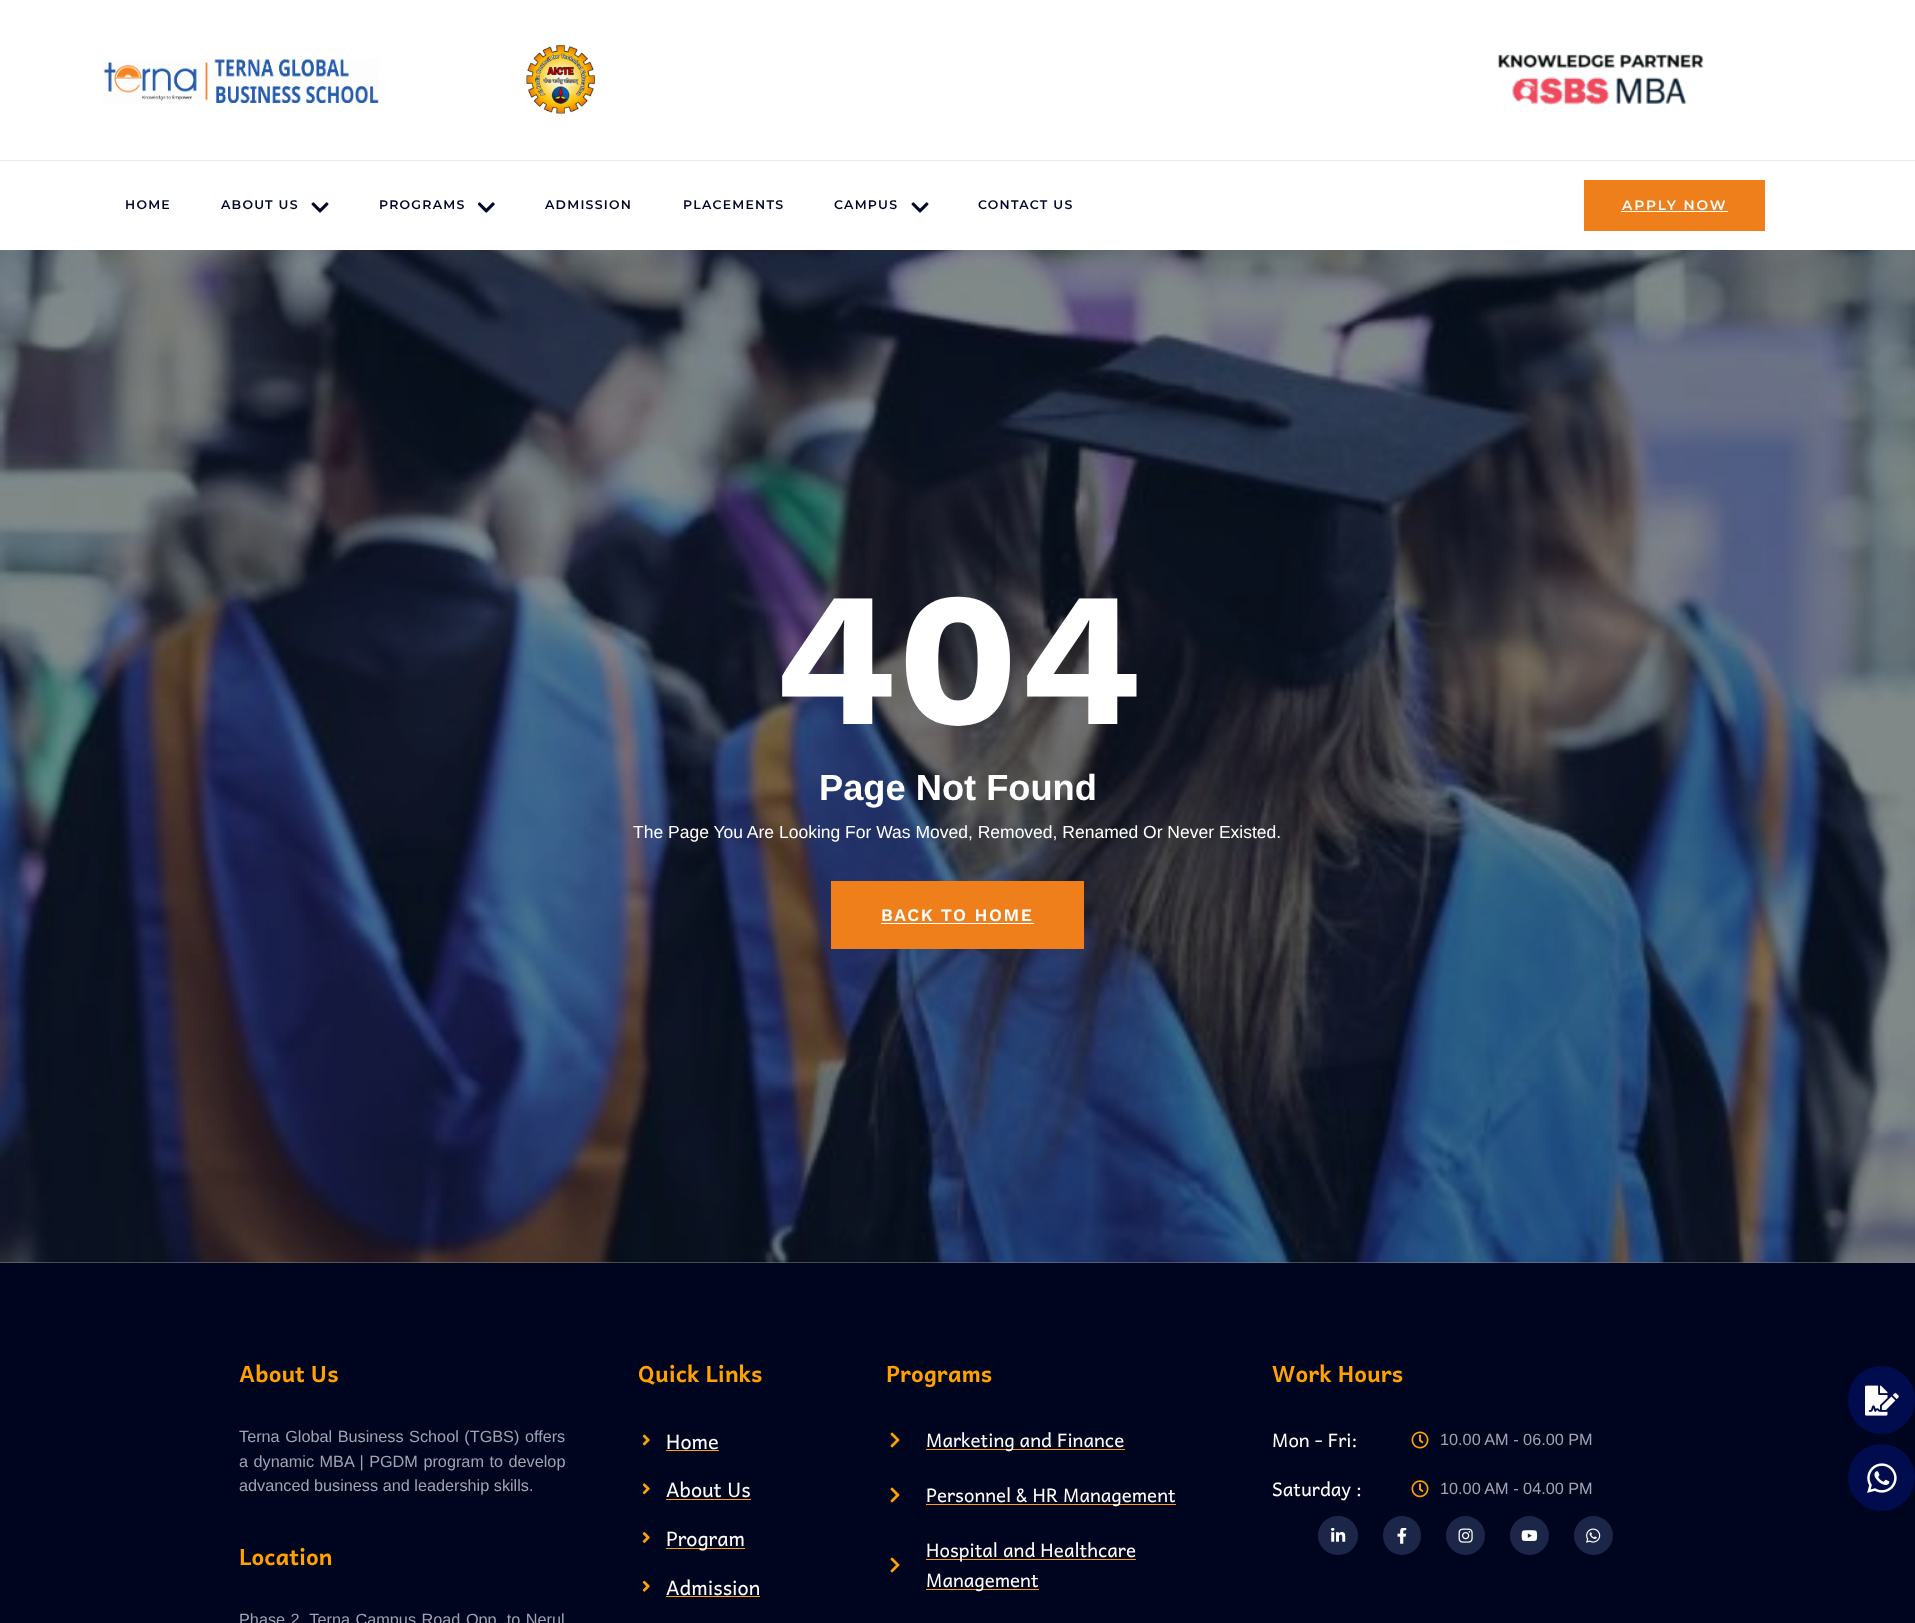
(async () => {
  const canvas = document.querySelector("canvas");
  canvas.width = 1915;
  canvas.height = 1623;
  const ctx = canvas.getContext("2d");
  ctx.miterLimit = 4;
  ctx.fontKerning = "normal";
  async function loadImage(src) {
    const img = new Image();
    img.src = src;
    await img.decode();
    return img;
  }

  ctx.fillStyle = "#ffffff";
  ctx.fillRect(0, 0, 1915, 1623);
  ctx.fillStyle = "#81898f";
  ctx.fillRect(0, 1262, 1915, 1);
  ctx.fillStyle = "#eaeaea";
  ctx.fillRect(0, 160, 1915, 1);
  ctx.drawImage(await loadImage("img/1.png"), 103, 59, 276, 45);
  ctx.drawImage(await loadImage("img/2.png"), 526, 44, 70, 70);
  ctx.drawImage(await loadImage("img/3.png"), 1497, 54, 207, 51);
  ctx.drawImage(await loadImage("img/4.png"), 311, 202, 18, 11);
  ctx.drawImage(await loadImage("img/5.png"), 478, 202, 17, 11);
  ctx.drawImage(await loadImage("img/4.png"), 911, 202, 18, 11);
  ctx.fillStyle = "#ef7f1a";
  ctx.fillRect(1584, 180, 181, 51);
  ctx.fillStyle = "#ffffff";
  ctx.fillRect(1621, 211, 107, 1);
  ctx.drawImage(await loadImage("img/6.png"), 0, 250, 1915, 1013);
  for (const [x, y, w, h, color] of [
    [831, 881, 253, 68, "#ef7f1a"],
    [881, 923, 153, 1, "#ffffff"],
    [0, 1263, 1915, 360, "#00051f"],
  ]) {
    ctx.fillStyle = color;
    ctx.fillRect(x, y, w, h);
  }
  ctx.fillStyle = "#010c4e";
  ctx.beginPath();
  ctx.roundRect(1848, 1366, 67, 68, 33.5);
  ctx.fill();
  ctx.drawImage(await loadImage("img/7.png"), 1865, 1385, 34, 31);
  ctx.beginPath();
  ctx.arc(1881.5, 1477.5, 33.5, 0, Math.PI * 2);
  ctx.fill();
  ctx.drawImage(await loadImage("img/8.png"), 1867, 1463, 30, 30);
  ctx.drawImage(await loadImage("img/9.png"), 642, 1434, 8, 12);
  ctx.fillStyle = "#ffa100";
  ctx.fillRect(666, 1450, 53, 1);
  ctx.drawImage(await loadImage("img/10.png"), 642, 1483, 8, 12);
  ctx.fillRect(666, 1499, 85, 1);
  ctx.drawImage(await loadImage("img/11.png"), 642, 1532, 8, 11);
  ctx.fillRect(666, 1548, 79, 1);
  ctx.drawImage(await loadImage("img/12.png"), 642, 1580, 8, 12);
  ctx.fillRect(666, 1596, 94, 1);
  ctx.drawImage(await loadImage("img/13.png"), 890, 1432, 10, 16);
  ctx.fillRect(926, 1449, 199, 1);
  ctx.drawImage(await loadImage("img/13.png"), 890, 1487, 10, 16);
  ctx.fillRect(926, 1504, 250, 1);
  ctx.drawImage(await loadImage("img/13.png"), 890, 1557, 10, 16);
  ctx.fillRect(926, 1559, 210, 1);
  ctx.fillRect(926, 1589, 113, 1);
  ctx.drawImage(await loadImage("img/14.png"), 1411, 1431, 18, 18);
  ctx.drawImage(await loadImage("img/15.png"), 1411, 1480, 18, 18);
  ctx.fillStyle = "#1c2648";
  ctx.beginPath();
  ctx.roundRect(1318, 1516, 40, 39, 19.5);
  ctx.fill();
  ctx.drawImage(await loadImage("img/16.png"), 1331, 1528, 15, 14);
  ctx.beginPath();
  ctx.roundRect(1383, 1516, 38, 39, 19);
  ctx.fill();
  ctx.drawImage(await loadImage("img/17.png"), 1397, 1528, 10, 16);
  ctx.beginPath();
  ctx.arc(1465.5, 1535.5, 19.5, 0, Math.PI * 2);
  ctx.fill();
  ctx.drawImage(await loadImage("img/18.png"), 1458, 1528, 15, 15);
  ctx.beginPath();
  ctx.arc(1529.5, 1535.5, 19.5, 0, Math.PI * 2);
  ctx.fill();
  ctx.drawImage(await loadImage("img/19.png"), 1521, 1530, 17, 12);
  ctx.beginPath();
  ctx.arc(1593.5, 1535.5, 19.5, 0, Math.PI * 2);
  ctx.fill();
  ctx.drawImage(await loadImage("img/20.png"), 1586, 1528, 15, 15);
  ctx.letterSpacing = "1.25px";
  ctx.font = "600 12.5px Montserrat";
  ctx.fillStyle = "#00062b";
  for (const [text, x, y] of [
    ["HOME", 125, 209],
    ["ABOUT US", 221, 209],
    ["PROGRAMS", 379, 209],
    ["ADMISSION", 545, 209],
    ["PLACEMENTS", 683, 209],
    ["CAMPUS", 834, 209],
    ["CONTACT US", 978, 209],
  ]) {
    ctx.fillText(text, x, y);
  }
  ctx.letterSpacing = "1.9px";
  ctx.font = "600 13.75px Montserrat";
  ctx.fillStyle = "#ffffff";
  ctx.fillText("APPLY NOW", 1622, 210);
  ctx.letterSpacing = "0px";
  ctx.font = "bold 190px Work Sans";
  ctx.fillText("404", 774, 724);
  ctx.font = "bold 36.25px Liberation Sans";
  ctx.fillText("Page Not Found", 819, 800);
  ctx.font = "17.5px Liberation Sans";
  ctx.fillText("The Page You Are Looking For Was Moved, Removed, Renamed Or Never Existed.", 633, 838);
  ctx.letterSpacing = "1.6px";
  ctx.font = "600 17.5px Work Sans";
  ctx.fillText("BACK TO HOME", 881, 921);
  ctx.letterSpacing = "0px";
  ctx.font = "bold 22.5px Andika";
  ctx.fillStyle = "#ffa100";
  ctx.fillText("About Us", 239, 1382);
  ctx.wordSpacing = "1px";
  ctx.font = "16.25px Liberation Sans";
  ctx.fillStyle = "#a1a3b1";
  ctx.fillText("Terna Global Business School (TGBS) offers", 239, 1442);
  ctx.fillText("a dynamic MBA | PGDM program to develop", 239, 1467);
  ctx.wordSpacing = "0px";
  ctx.fillText("advanced business and leadership skills.", 239, 1491);
  ctx.font = "bold 22.5px Andika";
  ctx.fillStyle = "#ffa100";
  ctx.fillText("Location", 239, 1565);
  ctx.wordSpacing = "1px";
  ctx.font = "16.25px Liberation Sans";
  ctx.fillStyle = "#a1a3b1";
  ctx.fillText("Phase 2, Terna Campus Road Opp. to Nerul", 239, 1625);
  ctx.wordSpacing = "0px";
  ctx.font = "bold 22.5px Andika";
  ctx.fillStyle = "#ffa100";
  ctx.fillText("Quick Links", 638, 1382);
  ctx.font = "20px Andika";
  ctx.fillStyle = "#ffffff";
  for (const [text, x, y] of [
    ["Home", 666, 1449],
    ["About Us", 666, 1497],
    ["Program", 666, 1546],
    ["Admission", 666, 1595],
  ]) {
    ctx.fillText(text, x, y);
  }
  ctx.font = "bold 22.5px Andika";
  ctx.fillStyle = "#ffa100";
  ctx.fillText("Programs", 886, 1382);
  ctx.font = "18.75px Andika";
  ctx.fillStyle = "#ffffff";
  for (const [text, x, y] of [
    ["Marketing and Finance", 926, 1447],
    ["Personnel & HR Management", 926, 1502],
    ["Hospital and Healthcare", 926, 1557],
    ["Management", 926, 1587],
  ]) {
    ctx.fillText(text, x, y);
  }
  ctx.font = "bold 22.5px Andika";
  ctx.fillStyle = "#ffa100";
  ctx.fillText("Work Hours", 1272, 1382);
  ctx.font = "18.75px Andika";
  ctx.fillStyle = "#ffffff";
  ctx.fillText("Mon - Fri:", 1272, 1447);
  ctx.fillText("Saturday :", 1272, 1496);
  ctx.font = "16.25px Liberation Sans";
  ctx.fillStyle = "#a1a3b1";
  ctx.fillText("10.00 AM - 06.00 PM", 1440, 1445);
  ctx.fillText("10.00 AM - 04.00 PM", 1440, 1494);
})();
